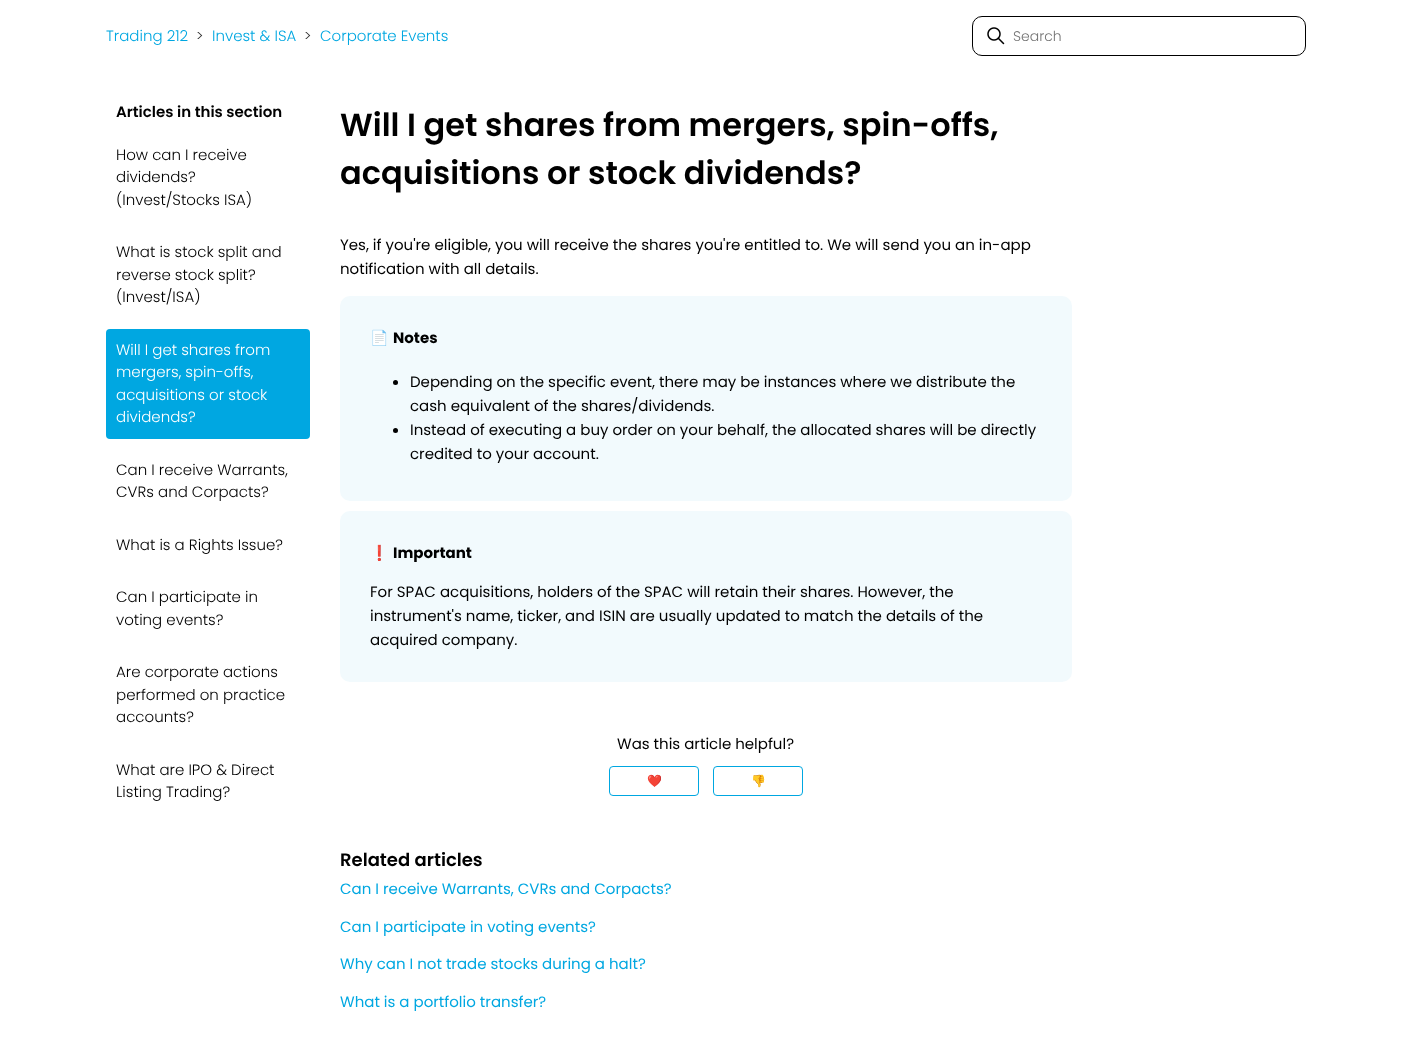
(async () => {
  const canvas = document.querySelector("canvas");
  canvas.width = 1412;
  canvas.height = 1039;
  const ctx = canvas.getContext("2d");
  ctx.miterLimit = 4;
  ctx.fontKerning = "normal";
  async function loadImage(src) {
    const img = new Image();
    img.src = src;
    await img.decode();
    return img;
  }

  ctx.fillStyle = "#ffffff";
  ctx.fillRect(0, 0, 1412, 1039);
  ctx.beginPath();
  ctx.roundRect(972.5, 16.5, 333, 39, 9.5);
  ctx.strokeStyle = "#000000";
  ctx.stroke();
  ctx.drawImage(await loadImage("img/1.png"), 987, 27, 18, 18);
  ctx.fillStyle = "#00a7e1";
  ctx.beginPath();
  ctx.roundRect(106, 329, 204, 110, 4);
  ctx.fill();
  ctx.fillStyle = "#f2fafd";
  ctx.beginPath();
  ctx.roundRect(340, 296, 732, 205, 10);
  ctx.fill();
  ctx.fillStyle = "#000000";
  ctx.beginPath();
  ctx.arc(395.5, 382.5, 2.5, 0, Math.PI * 2);
  ctx.fill();
  ctx.beginPath();
  ctx.arc(395.5, 430.5, 2.5, 0, Math.PI * 2);
  ctx.fill();
  ctx.fillStyle = "#f2fafd";
  ctx.beginPath();
  ctx.roundRect(340, 511, 732, 171, 10);
  ctx.fill();
  ctx.beginPath();
  ctx.roundRect(609.5, 766.5, 89, 29, 3.5);
  ctx.strokeStyle = "#00a7e1";
  ctx.stroke();
  ctx.beginPath();
  ctx.roundRect(713.5, 766.5, 89, 29, 3.5);
  ctx.stroke();
  ctx.font = "300 15px Poppins";
  ctx.fillStyle = "#00a7e1";
  ctx.fillText("Trading 212", 106, 41);
  ctx.fillStyle = "#333333";
  ctx.fillText(">", 196, 41);
  ctx.fillStyle = "#00a7e1";
  ctx.fillText("Invest & ISA", 212, 41);
  ctx.fillStyle = "#333333";
  ctx.fillText(">", 304, 41);
  ctx.fillStyle = "#00a7e1";
  ctx.fillText("Corporate Events", 320, 41);
  ctx.font = "300 14px Poppins";
  ctx.fillStyle = "#757575";
  ctx.fillText("Search", 1013, 41);
  ctx.font = "600 15px Poppins";
  ctx.fillStyle = "#000000";
  ctx.fillText("Articles in this section", 116, 117);
  ctx.font = "300 15px Poppins";
  for (const [text, x, y] of [
    ["How can I receive", 116, 160],
    ["dividends?", 116, 182],
    ["(Invest/Stocks ISA)", 116, 205],
    ["What is stock split and", 116, 257],
    ["reverse stock split?", 116, 280],
    ["(Invest/ISA)", 116, 302],
  ]) {
    ctx.fillText(text, x, y);
  }
  ctx.fillStyle = "#ffffff";
  for (const [text, x, y] of [
    ["Will I get shares from", 116, 355],
    ["mergers, spin-offs,", 116, 377],
    ["acquisitions or stock", 116, 400],
    ["dividends?", 116, 422],
  ]) {
    ctx.fillText(text, x, y);
  }
  ctx.fillStyle = "#000000";
  for (const [text, x, y] of [
    ["Can I receive Warrants,", 116, 475],
    ["CVRs and Corpacts?", 116, 497],
    ["What is a Rights Issue?", 116, 550],
    ["Can I participate in", 116, 602],
    ["voting events?", 116, 625],
    ["Are corporate actions", 116, 677],
    ["performed on practice", 116, 700],
    ["accounts?", 116, 722],
    ["What are IPO & Direct", 116, 775],
    ["Listing Trading?", 116, 797],
  ]) {
    ctx.fillText(text, x, y);
  }
  ctx.font = "600 32px Poppins";
  ctx.fillText("Will I get shares from mergers, spin-offs,", 340, 136);
  ctx.fillText("acquisitions or stock dividends?", 340, 184);
  ctx.font = "15px Poppins";
  ctx.fillText("Yes, if you're eligible, you will receive the shares you're entitled to. We will send you an in-app", 340, 250);
  ctx.fillText("notification with all details.", 340, 274);
  ctx.font = "15px Noto Color Emoji";
  ctx.fillText("📄", 370, 343);
  ctx.font = "bold 15px Poppins";
  ctx.fillText("Notes", 393, 343);
  ctx.font = "15px Poppins";
  for (const [text, x, y] of [
    ["Depending on the specific event, there may be instances where we distribute the", 410, 387],
    ["cash equivalent of the shares/dividends.", 410, 411],
    ["Instead of executing a buy order on your behalf, the allocated shares will be directly", 410, 435],
    ["credited to your account.", 410, 459],
  ]) {
    ctx.fillText(text, x, y);
  }
  ctx.font = "15px Noto Color Emoji";
  ctx.fillText("❗️", 370, 558);
  ctx.font = "bold 15px Poppins";
  ctx.fillText("Important", 393, 558);
  ctx.font = "15px Poppins";
  for (const [text, x, y] of [
    ["For SPAC acquisitions, holders of the SPAC will retain their shares. However, the", 370, 597],
    ["instrument's name, ticker, and ISIN are usually updated to match the details of the", 370, 621],
    ["acquired company.", 370, 645],
    ["Was this article helpful?", 617, 749],
  ]) {
    ctx.fillText(text, x, y);
  }
  ctx.font = "12px Noto Color Emoji";
  ctx.fillStyle = "#00a7e1";
  ctx.fillText("❤️", 647, 785);
  ctx.fillText("👎", 751, 785);
  ctx.font = "600 18px Poppins";
  ctx.fillStyle = "#000000";
  ctx.fillText("Related articles", 340, 866);
  ctx.font = "15px Poppins";
  ctx.fillStyle = "#00a7e1";
  for (const [text, x, y] of [
    ["Can I receive Warrants, CVRs and Corpacts?", 340, 894],
    ["Can I participate in voting events?", 340, 932],
    ["Why can I not trade stocks during a halt?", 340, 969],
    ["What is a portfolio transfer?", 340, 1007],
  ]) {
    ctx.fillText(text, x, y);
  }
})();
